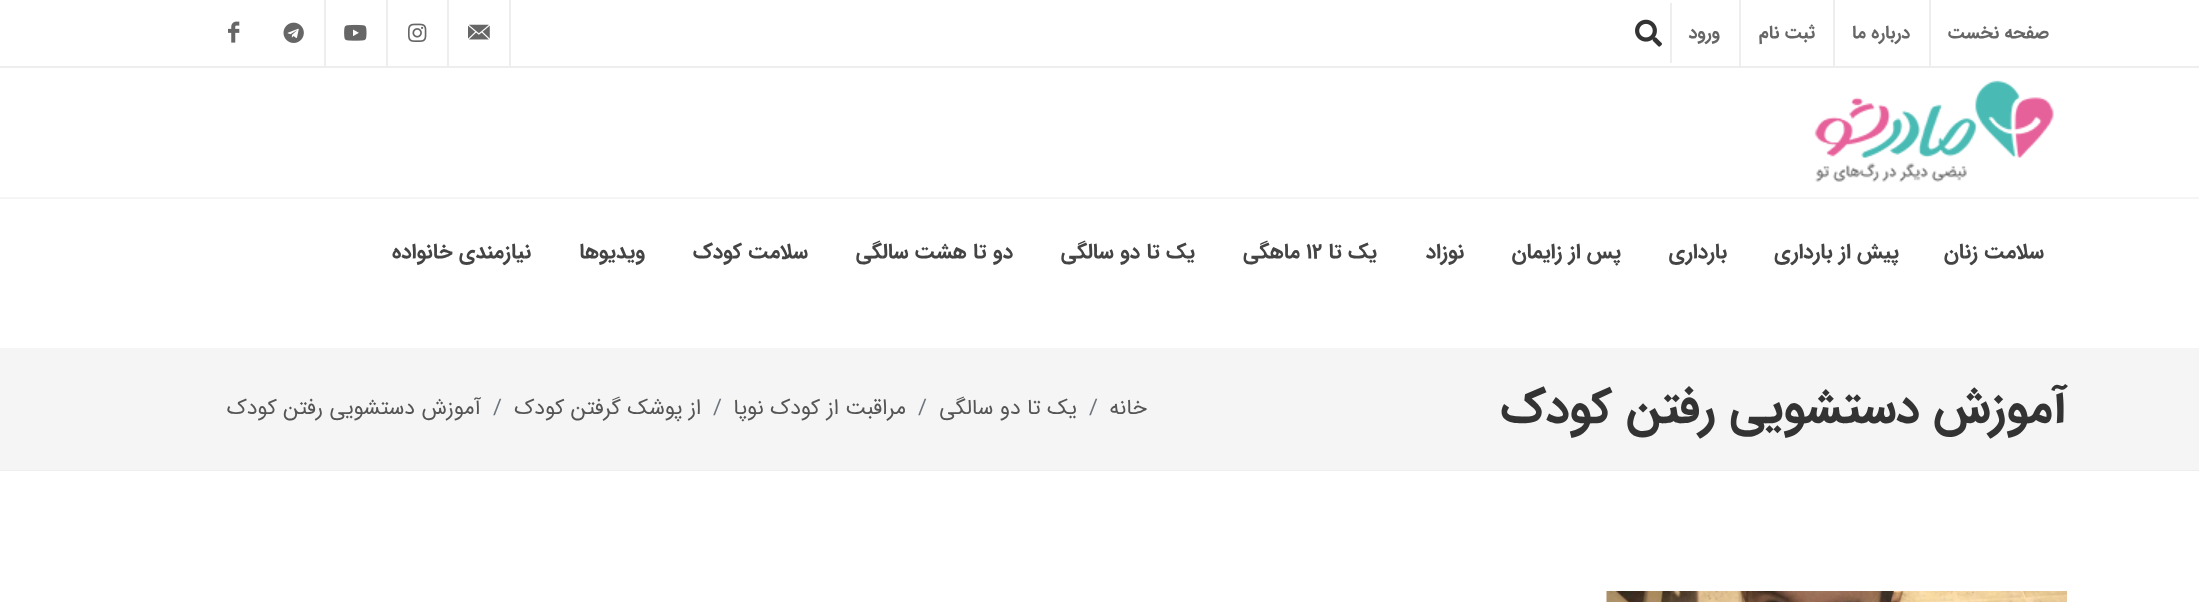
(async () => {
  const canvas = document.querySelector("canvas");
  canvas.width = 2199;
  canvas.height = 602;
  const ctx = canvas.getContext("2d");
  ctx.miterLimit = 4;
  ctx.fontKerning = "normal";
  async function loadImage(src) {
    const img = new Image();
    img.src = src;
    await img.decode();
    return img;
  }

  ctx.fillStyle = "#ffffff";
  ctx.fillRect(0, 0, 2199, 602);
  for (const [x, y, w, h, color] of [
    [0, 66, 2199, 2, "#eeeeee"],
    [1929, 0, 2, 66, "#eeeeee"],
    [1833, 0, 2, 66, "#eeeeee"],
    [1739, 0, 2, 66, "#eeeeee"],
    [1670, 3, 2, 60, "#eeeeee"],
  ]) {
    ctx.fillStyle = color;
    ctx.fillRect(x, y, w, h);
  }
  ctx.drawImage(await loadImage("img/1.png"), 1635, 19, 27, 28);
  ctx.fillRect(509, 0, 2, 66);
  ctx.drawImage(await loadImage("img/2.png"), 468, 24, 22, 16);
  ctx.fillRect(447, 0, 2, 66);
  ctx.drawImage(await loadImage("img/3.png"), 408, 23, 19, 19);
  ctx.fillRect(386, 0, 2, 66);
  ctx.drawImage(await loadImage("img/4.png"), 344, 24, 23, 17);
  ctx.fillRect(324, 0, 2, 66);
  ctx.drawImage(await loadImage("img/5.png"), 283, 22, 21, 21);
  ctx.drawImage(await loadImage("img/6.png"), 228, 21, 12, 22);
  ctx.fillStyle = "#f5f5f5";
  ctx.fillRect(0, 348, 2199, 122);
  ctx.drawImage(await loadImage("img/7.png"), 1814, 80, 240, 102);
  ctx.fillRect(0, 197, 2199, 2);
  ctx.fillStyle = "#eeeeee";
  ctx.fillRect(0, 470, 2199, 1);
  ctx.drawImage(await loadImage("img/8.png"), 1606, 591, 461, 11);
  ctx.direction = "rtl";
  ctx.font = "bold 18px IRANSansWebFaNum";
  ctx.fillStyle = "#666666";
  for (const [text, x, y] of [
    ["صفحه نخست", 2049, 38],
    ["درباره ما", 1910, 38],
    ["ثبت نام", 1815, 38],
    ["ورود", 1720, 38],
  ]) {
    ctx.fillText(text, x, y);
  }
  ctx.font = "bold 21px IRANSansWebFaNum";
  ctx.fillStyle = "#444444";
  for (const [text, x, y] of [
    ["سلامت زنان", 2044, 258],
    ["پیش از بارداری", 1899, 258],
    ["بارداری", 1727, 258],
    ["پس از زایمان", 1621, 258],
    ["نوزاد", 1464, 258],
    ["یک تا", 1377, 258],
  ]) {
    ctx.fillText(text, x, y);
  }
  ctx.direction = "ltr";
  ctx.fillText("۱۲", 1306, 258);
  ctx.direction = "rtl";
  for (const [text, x, y] of [
    ["ماهگی", 1300, 258],
    ["یک تا دو سالگی", 1195, 258],
    ["دو تا هشت سالگی", 1013, 258],
    ["سلامت کودک", 808, 258],
    ["ویدیوها", 645, 258],
    ["نیازمندی خانواده", 531, 258],
  ]) {
    ctx.fillText(text, x, y);
  }
  ctx.font = "bold 48px IRANSansWebFaNum";
  ctx.fillStyle = "#333333";
  ctx.fillText("آموزش دستشویی رفتن کودک", 2067, 422);
  ctx.font = "21.6px IRANSansWebFaNum";
  ctx.fillStyle = "#555555";
  ctx.fillText("خانه", 1147, 414);
  ctx.direction = "ltr";
  ctx.fillStyle = "#6c757d";
  ctx.fillText("/", 1089, 414);
  ctx.direction = "rtl";
  ctx.fillStyle = "#555555";
  ctx.fillText("یک تا دو سالگی", 1077, 414);
  ctx.direction = "ltr";
  ctx.fillStyle = "#6c757d";
  ctx.fillText("/", 918, 414);
  ctx.direction = "rtl";
  ctx.fillStyle = "#555555";
  ctx.fillText("مراقبت از کودک نوپا", 906, 414);
  ctx.direction = "ltr";
  ctx.fillStyle = "#6c757d";
  ctx.fillText("/", 713, 414);
  ctx.direction = "rtl";
  ctx.fillStyle = "#555555";
  ctx.fillText("از پوشک گرفتن کودک", 701, 414);
  ctx.direction = "ltr";
  ctx.fillStyle = "#6c757d";
  ctx.fillText("/", 493, 414);
  ctx.direction = "rtl";
  ctx.fillStyle = "#555555";
  ctx.fillText("آموزش دستشویی رفتن کودک", 481, 414);
})();
